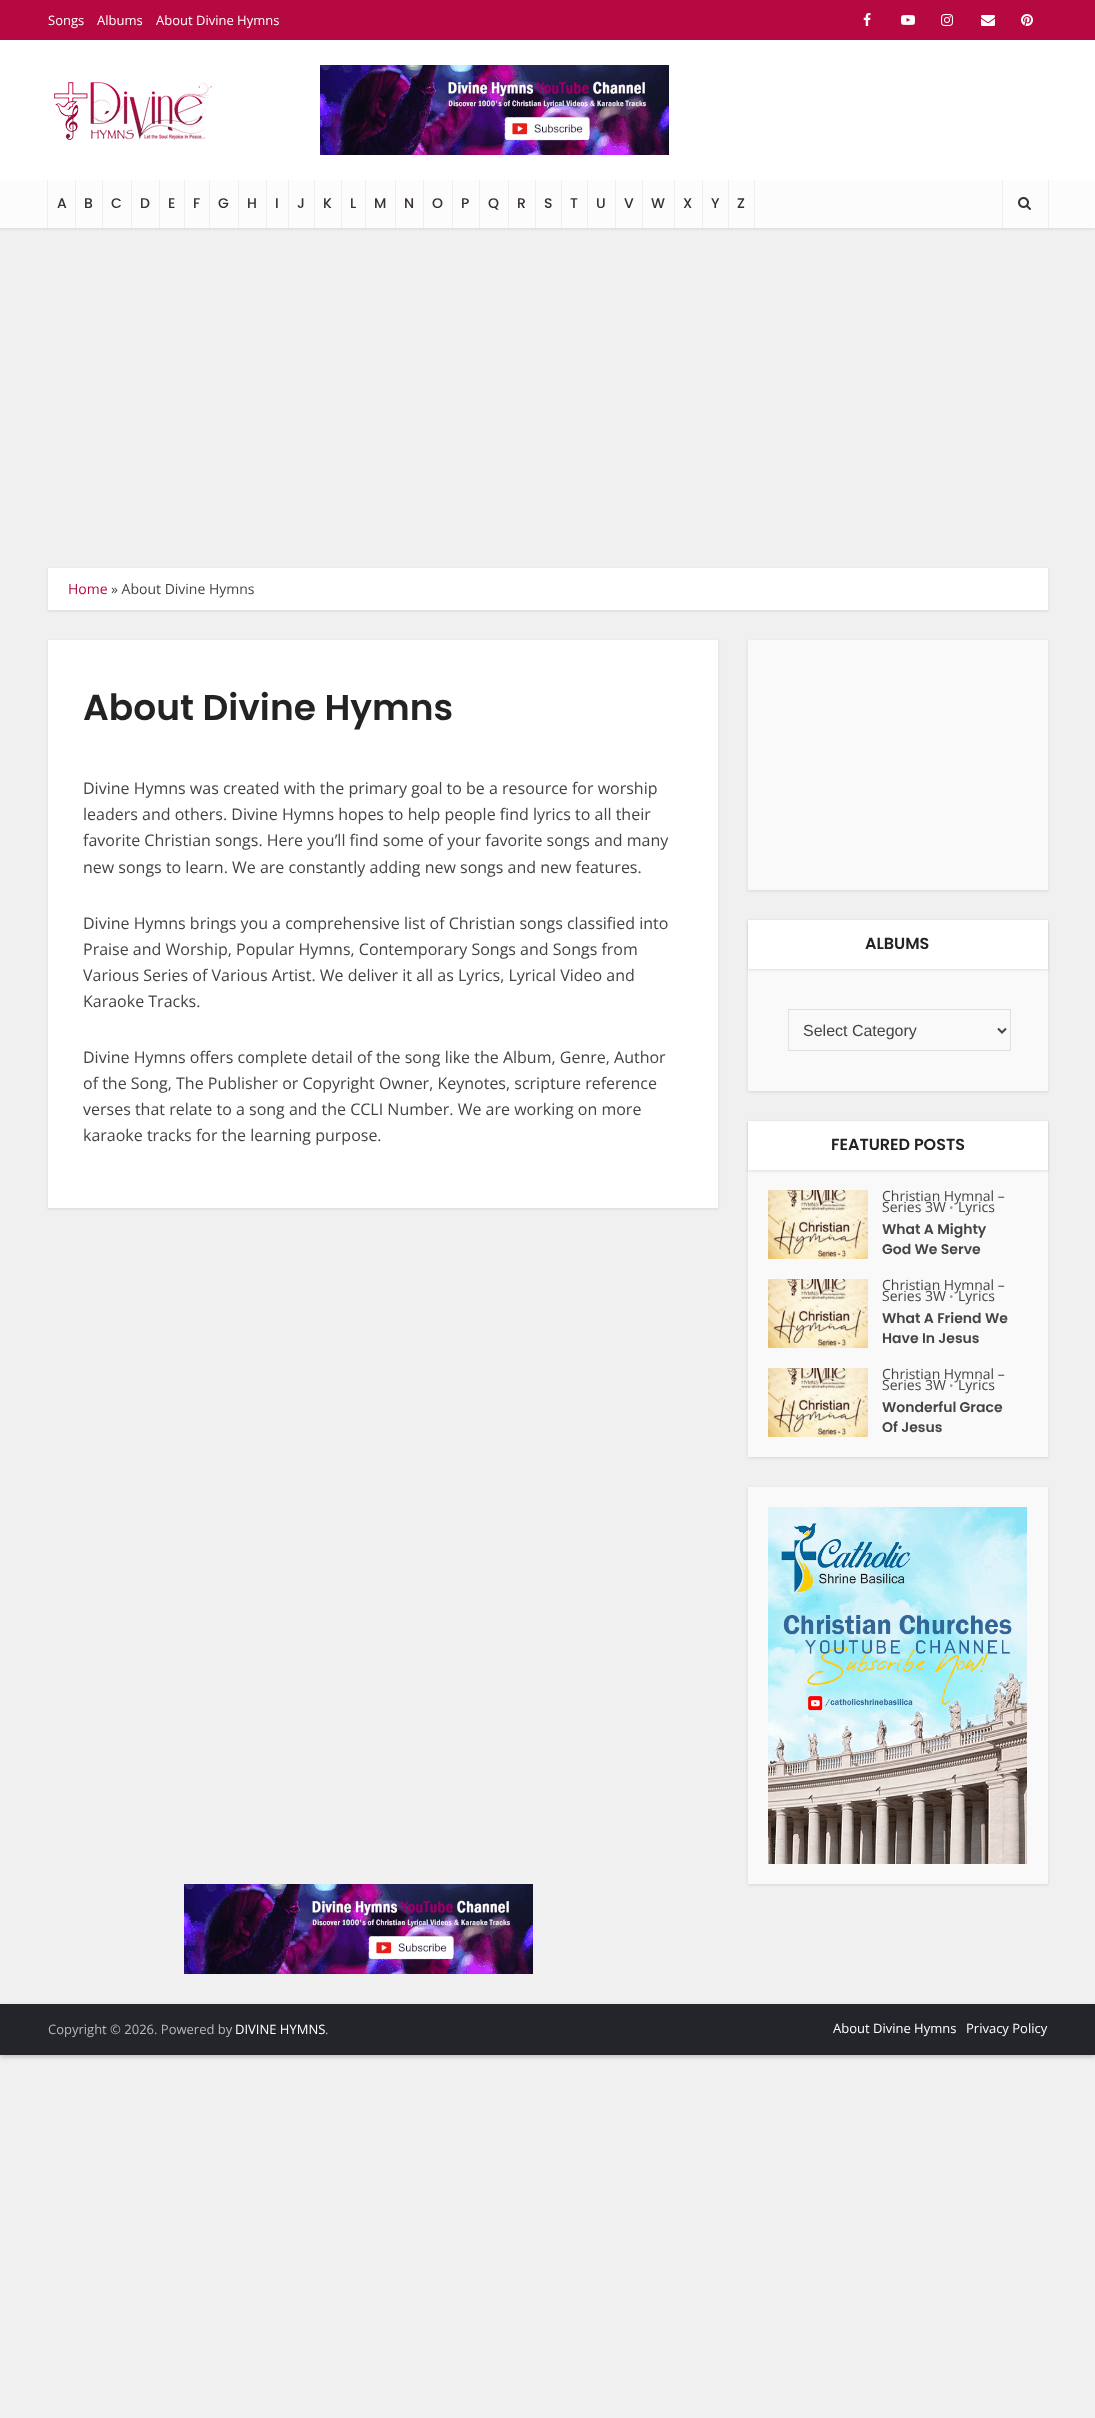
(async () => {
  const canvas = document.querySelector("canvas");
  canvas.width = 1095;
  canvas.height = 2418;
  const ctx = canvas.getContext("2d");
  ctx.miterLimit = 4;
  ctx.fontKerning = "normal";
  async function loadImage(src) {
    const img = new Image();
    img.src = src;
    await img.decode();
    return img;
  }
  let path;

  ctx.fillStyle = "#f0f0f0";
  ctx.fillRect(0, 0, 1095, 2418);
  ctx.fillStyle = "rgba(0, 0, 0, 0.1)";
  ctx.filter = "blur(1.5px)";
  ctx.beginPath();
  ctx.rect(0, 1, 1095, 228);
  ctx.fill();
  ctx.filter = "none";
  ctx.fillStyle = "#ffffff";
  ctx.fillRect(0, 40, 1095, 140);
  ctx.fillStyle = "#b70941";
  ctx.fillRect(0, 0, 1095, 40);
  ctx.drawImage(await loadImage("img/1.png"), 863, 13, 8, 13);
  ctx.drawImage(await loadImage("img/2.png"), 901, 15, 14, 10);
  ctx.drawImage(await loadImage("img/3.png"), 941, 14, 12, 12);
  ctx.drawImage(await loadImage("img/4.png"), 981, 15, 14, 11);
  ctx.drawImage(await loadImage("img/5.png"), 1021, 14, 12, 12);
  ctx.drawImage(await loadImage("img/6.png"), 54, 82, 158, 58);
  ctx.drawImage(await loadImage("img/7.png"), 320, 65, 349, 90);
  for (const [x, y, w, h, color] of [
    [0, 180, 1095, 48, "#fcfcfc"],
    [75, 180, 1, 48, "#efefef"],
    [47, 180, 1, 48, "#efefef"],
    [102, 180, 1, 48, "#efefef"],
    [131, 180, 1, 48, "#efefef"],
    [159, 180, 1, 48, "#efefef"],
    [184, 180, 1, 48, "#efefef"],
    [209, 180, 1, 48, "#efefef"],
    [238, 180, 1, 48, "#efefef"],
    [266, 180, 1, 48, "#efefef"],
    [288, 180, 1, 48, "#efefef"],
    [314, 180, 1, 48, "#efefef"],
    [341, 180, 1, 48, "#efefef"],
    [365, 180, 1, 48, "#efefef"],
    [395, 180, 1, 48, "#efefef"],
    [423, 180, 1, 48, "#efefef"],
    [452, 180, 1, 48, "#efefef"],
    [479, 180, 1, 48, "#efefef"],
    [508, 180, 1, 48, "#efefef"],
    [535, 180, 1, 48, "#efefef"],
    [561, 180, 1, 48, "#efefef"],
    [587, 180, 1, 48, "#efefef"],
    [615, 180, 1, 48, "#efefef"],
    [642, 180, 1, 48, "#efefef"],
    [674, 180, 1, 48, "#efefef"],
    [702, 180, 1, 48, "#efefef"],
    [728, 180, 1, 48, "#efefef"],
    [754, 180, 1, 48, "#efefef"],
    [1048, 180, 1, 48, "#efefef"],
    [1002, 180, 1, 48, "#efefef"],
  ]) {
    ctx.fillStyle = color;
    ctx.fillRect(x, y, w, h);
  }
  ctx.drawImage(await loadImage("img/8.png"), 1018, 197, 13, 13);
  ctx.fillStyle = "rgba(0, 0, 0, 0.1)";
  ctx.filter = "blur(1.5px)";
  ctx.beginPath();
  ctx.rect(48, 569, 1000, 42);
  ctx.fill();
  ctx.filter = "none";
  ctx.fillStyle = "#ffffff";
  ctx.fillRect(48, 568, 1000, 42);
  ctx.fillStyle = "rgba(0, 0, 0, 0.1)";
  ctx.filter = "blur(1.5px)";
  ctx.beginPath();
  ctx.rect(48, 641, 670, 568);
  ctx.fill();
  ctx.filter = "none";
  ctx.fillStyle = "#ffffff";
  ctx.fillRect(48, 640, 670, 568);
  ctx.fillStyle = "rgba(0, 0, 0, 0.1)";
  ctx.filter = "blur(1.5px)";
  ctx.beginPath();
  ctx.rect(748, 641, 300, 250);
  ctx.fill();
  ctx.filter = "none";
  ctx.fillStyle = "#f9f9f9";
  ctx.fillRect(748, 640, 300, 250);
  ctx.fillStyle = "rgba(0, 0, 0, 0.1)";
  ctx.filter = "blur(1.5px)";
  ctx.beginPath();
  ctx.rect(748, 921, 300, 171);
  ctx.fill();
  ctx.filter = "none";
  ctx.fillStyle = "#f9f9f9";
  ctx.fillRect(748, 969, 300, 122);
  ctx.fillStyle = "rgba(0, 0, 0, 0.1)";
  ctx.filter = "blur(1.5px)";
  ctx.beginPath();
  ctx.rect(748, 921, 300, 49);
  ctx.fill();
  ctx.filter = "none";
  ctx.fillStyle = "#ffffff";
  ctx.fillRect(748, 920, 300, 49);
  ctx.strokeStyle = "#e0e0e0";
  ctx.strokeRect(788.5, 1009.5, 222, 41);
  path = new Path2D("M998 1028.5L1002 1032.5L1006 1028.5");
  ctx.strokeStyle = "#444444";
  ctx.lineWidth = 2;
  ctx.stroke(path);
  ctx.fillStyle = "rgba(0, 0, 0, 0.1)";
  ctx.filter = "blur(1.5px)";
  ctx.beginPath();
  ctx.rect(748, 1122, 300, 336);
  ctx.fill();
  ctx.filter = "none";
  ctx.fillStyle = "#f9f9f9";
  ctx.fillRect(748, 1170, 300, 287);
  ctx.fillStyle = "rgba(0, 0, 0, 0.1)";
  ctx.filter = "blur(1.5px)";
  ctx.beginPath();
  ctx.rect(748, 1122, 300, 49);
  ctx.fill();
  ctx.filter = "none";
  ctx.fillStyle = "#ffffff";
  ctx.fillRect(748, 1121, 300, 49);
  ctx.drawImage(await loadImage("img/9.png"), 768, 1190, 100, 69);
  ctx.drawImage(await loadImage("img/9.png"), 768, 1279, 100, 69);
  ctx.drawImage(await loadImage("img/9.png"), 768, 1368, 100, 69);
  ctx.fillStyle = "rgba(0, 0, 0, 0.1)";
  ctx.filter = "blur(1.5px)";
  ctx.beginPath();
  ctx.rect(748, 1488, 300, 397);
  ctx.fill();
  ctx.filter = "none";
  ctx.fillStyle = "#f9f9f9";
  ctx.fillRect(748, 1487, 300, 397);
  ctx.drawImage(await loadImage("img/10.png"), 768, 1507, 259, 357);
  ctx.drawImage(await loadImage("img/7.png"), 184, 1884, 349, 90);
  ctx.fillStyle = "rgba(0, 0, 0, 0.2)";
  ctx.filter = "blur(2px)";
  ctx.beginPath();
  ctx.rect(0, 2006, 1095, 51);
  ctx.fill();
  ctx.filter = "none";
  ctx.fillStyle = "#24252a";
  ctx.fillRect(0, 2004, 1095, 51);
  ctx.font = "13px Open Sans";
  ctx.fillStyle = "#ffffff";
  for (const [text, x, y] of [
    ["Songs", 48, 25],
    ["Albums", 97, 25],
    ["About Divine Hymns", 156, 25],
  ]) {
    ctx.fillText(text, x, y);
  }
  ctx.font = "500 14px Poppins";
  ctx.fillStyle = "#393030";
  for (const [text, x, y] of [
    ["A", 57, 208],
    ["B", 84, 208],
    ["C", 111, 208],
    ["D", 140, 208],
    ["E", 168, 208],
    ["F", 193, 208],
    ["G", 218, 208],
    ["H", 247, 208],
    ["I", 275, 208],
    ["J", 297, 208],
    ["K", 323, 208],
    ["L", 350, 208],
    ["M", 374, 208],
    ["N", 404, 208],
    ["O", 432, 208],
    ["P", 461, 208],
    ["Q", 488, 208],
    ["R", 517, 208],
    ["S", 544, 208],
    ["T", 570, 208],
    ["U", 596, 208],
    ["V", 624, 208],
    ["W", 651, 208],
    ["X", 683, 208],
    ["Y", 711, 208],
    ["Z", 737, 208],
  ]) {
    ctx.fillText(text, x, y);
  }
  ctx.font = "14px Open Sans";
  ctx.fillStyle = "#b70941";
  ctx.fillText("Home", 68, 594);
  ctx.fillStyle = "#444444";
  ctx.fillText("» About Divine Hymns", 111, 594);
  ctx.font = "600 36px Poppins";
  ctx.fillStyle = "#232323";
  ctx.fillText("About Divine Hymns", 83, 720);
  ctx.font = "16px Open Sans";
  ctx.fillStyle = "#444444";
  for (const [text, x, y] of [
    ["Divine Hymns was created with the primary goal to be a resource for worship", 83, 794],
    ["leaders and others. Divine Hymns hopes to help people find lyrics to all their", 83, 820],
    ["favorite Christian songs. Here you’ll find some of your favorite songs and many", 83, 846],
    ["new songs to learn. We are constantly adding new songs and new features.", 83, 873],
    ["Divine Hymns brings you a comprehensive list of Christian songs classified into", 83, 929],
    ["Praise and Worship, Popular Hymns, Contemporary Songs and Songs from", 83, 955],
    ["Various Series of Various Artist. We deliver it all as Lyrics, Lyrical Video and", 83, 981],
    ["Karaoke Tracks.", 83, 1007],
    ["Divine Hymns offers complete detail of the song like the Album, Genre, Author", 83, 1063],
    ["of the Song, The Publisher or Copyright Owner, Keynotes, scripture reference", 83, 1089],
    ["verses that relate to a song and the CCLI Number. We are working on more", 83, 1115],
    ["karaoke tracks for the learning purpose.", 83, 1141],
  ]) {
    ctx.fillText(text, x, y);
  }
  ctx.font = "600 16px Poppins";
  ctx.fillStyle = "#232323";
  ctx.fillText("ALBUMS", 865, 949);
  ctx.font = "16px Liberation Sans";
  ctx.fillStyle = "#444444";
  ctx.fillText("Select Category", 803, 1036);
  ctx.font = "600 16px Poppins";
  ctx.fillStyle = "#232323";
  ctx.fillText("FEATURED POSTS", 831, 1150);
  ctx.font = "14px Open Sans";
  ctx.fillStyle = "#444444";
  ctx.fillText("Christian Hymnal –", 882, 1201);
  ctx.fillText("Series 3W", 882, 1212);
  ctx.font = "12px Open Sans";
  ctx.fillStyle = "#9b9b9b";
  ctx.fillText("•", 949, 1212);
  ctx.font = "14px Open Sans";
  ctx.fillStyle = "#444444";
  ctx.fillText("Lyrics", 958, 1212);
  ctx.font = "600 14px Poppins";
  ctx.fillText("What A Mighty", 882, 1234);
  ctx.fillText("God We Serve", 882, 1254);
  ctx.font = "14px Open Sans";
  ctx.fillText("Christian Hymnal –", 882, 1290);
  ctx.fillText("Series 3W", 882, 1301);
  ctx.font = "12px Open Sans";
  ctx.fillStyle = "#9b9b9b";
  ctx.fillText("•", 949, 1301);
  ctx.font = "14px Open Sans";
  ctx.fillStyle = "#444444";
  ctx.fillText("Lyrics", 958, 1301);
  ctx.font = "600 14px Poppins";
  ctx.fillText("What A Friend We", 882, 1323);
  ctx.fillText("Have In Jesus", 882, 1343);
  ctx.font = "14px Open Sans";
  ctx.fillText("Christian Hymnal –", 882, 1379);
  ctx.fillText("Series 3W", 882, 1390);
  ctx.font = "12px Open Sans";
  ctx.fillStyle = "#9b9b9b";
  ctx.fillText("•", 949, 1390);
  ctx.font = "14px Open Sans";
  ctx.fillStyle = "#444444";
  ctx.fillText("Lyrics", 958, 1390);
  ctx.font = "600 14px Poppins";
  ctx.fillText("Wonderful Grace", 882, 1412);
  ctx.fillText("Of Jesus", 882, 1432);
  ctx.font = "13px Open Sans";
  ctx.fillStyle = "#b9b9bb";
  ctx.fillText("Copyright © 2026. Powered by", 48, 2034);
  ctx.fillStyle = "#ffffff";
  ctx.fillText("DIVINE HYMNS", 235, 2034);
  ctx.fillStyle = "#b9b9bb";
  ctx.fillText(".", 325, 2034);
  ctx.fillStyle = "#ffffff";
  ctx.fillText("About Divine Hymns", 833, 2033);
  ctx.fillText("Privacy Policy", 966, 2033);
})();
